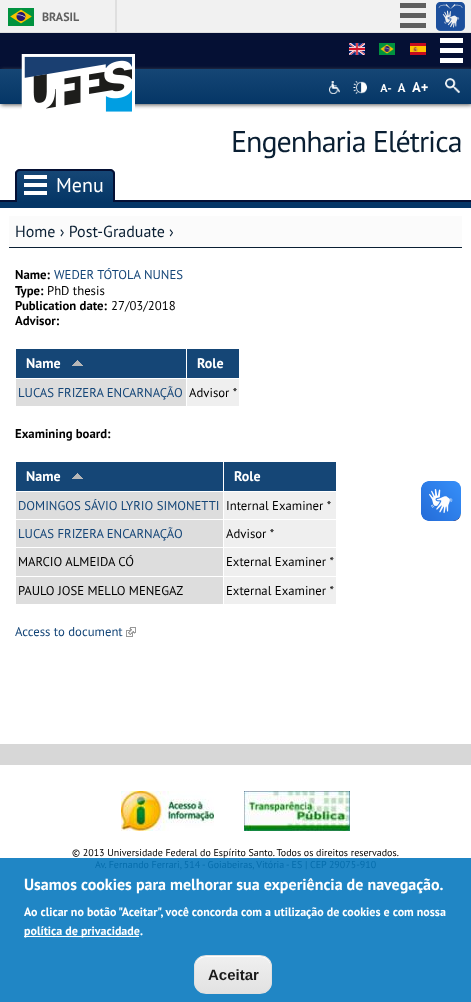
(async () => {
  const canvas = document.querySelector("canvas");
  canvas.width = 471;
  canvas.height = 1002;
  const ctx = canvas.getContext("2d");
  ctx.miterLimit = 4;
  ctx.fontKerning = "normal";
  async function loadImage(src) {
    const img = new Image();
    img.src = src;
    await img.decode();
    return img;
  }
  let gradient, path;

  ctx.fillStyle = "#ffffff";
  ctx.fillRect(0, 0, 471, 1002);
  for (const [x, y, w, h, color] of [
    [0, 858, 471, 144, "#2086c5"],
    [0, 0, 471, 32, "#f1f1f1"],
    [0, 32, 471, 1, "#dfdfdf"],
    [115, 0, 2, 32, "#dfdfdf"],
  ]) {
    ctx.fillStyle = color;
    ctx.fillRect(x, y, w, h);
  }
  ctx.drawImage(await loadImage("img/1.png"), 8, 8, 26, 18);
  for (const [x, y, w, h, color] of [
    [400, 3, 26, 5, "#606060"],
    [400, 13, 26, 5, "#606060"],
    [400, 23, 26, 5, "#606060"],
  ]) {
    ctx.fillStyle = color;
    ctx.fillRect(x, y, w, h);
  }
  ctx.drawImage(await loadImage("img/2.png"), 436, 2, 29, 29);
  ctx.fillStyle = "#051034";
  ctx.fillRect(0, 33, 471, 36);
  ctx.drawImage(await loadImage("img/3.png"), 349, 43, 16, 12);
  ctx.drawImage(await loadImage("img/4.png"), 379, 43, 16, 12);
  ctx.drawImage(await loadImage("img/5.png"), 410, 43, 16, 12);
  for (const [x, y, w, h, color] of [
    [440, 38, 23, 5, "#ffffff"],
    [440, 48, 23, 5, "#ffffff"],
    [440, 58, 23, 5, "#ffffff"],
  ]) {
    ctx.fillStyle = color;
    ctx.fillRect(x, y, w, h);
  }
  ctx.fillStyle = "#595959";
  ctx.filter = "blur(2px)";
  ctx.beginPath();
  ctx.rect(1, 70, 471, 35);
  ctx.fill();
  ctx.filter = "none";
  gradient = ctx.createLinearGradient(236, 69, 236, 104);
  gradient.addColorStop(0, "#154675");
  gradient.addColorStop(1, "#053666");
  ctx.fillStyle = gradient;
  ctx.fillRect(0, 69, 471, 35);
  ctx.drawImage(await loadImage("img/6.png"), 21, 54, 114, 58);
  ctx.drawImage(await loadImage("img/7.png"), 329, 81, 11, 13);
  ctx.drawImage(await loadImage("img/8.png"), 353, 81, 14, 13);
  ctx.drawImage(await loadImage("img/9.png"), 380, 84, 12, 8);
  ctx.drawImage(await loadImage("img/10.png"), 397, 83, 9, 9);
  ctx.drawImage(await loadImage("img/11.png"), 412, 82, 16, 10);
  ctx.drawImage(await loadImage("img/12.png"), 445, 78, 15, 16);
  ctx.fillStyle = "#053666";
  ctx.fillRect(0, 202, 471, 6);
  ctx.fillStyle = "#051034";
  ctx.fillRect(0, 200, 471, 2);
  ctx.save();
  ctx.beginPath();
  ctx.roundRect(15, 169, 100, 33, [5, 5, 0, 0]);
  ctx.clip();
  gradient = ctx.createLinearGradient(65, 171, 65, 202);
  gradient.addColorStop(0, "#154675");
  gradient.addColorStop(1, "#053666");
  ctx.fillStyle = gradient;
  ctx.fillRect(15, 171, 100, 31);
  ctx.restore();
  path = new Path2D("M20 169H110C113 169 115 171 115 174V202H15V174C15 171 17 169 20 169ZM20 171H110C112 171 113 172 113 174V202H17V174C17 172 18 171 20 171Z");
  ctx.fill(path, "evenodd");
  for (const [x, y, w, h, color] of [
    [24, 175, 23, 4, "#ffffff"],
    [24, 183, 23, 4, "#ffffff"],
    [24, 191, 23, 4, "#ffffff"],
    [9, 216, 453, 31, "#fbfbfb"],
    [9, 247, 453, 1, "#0a1f33"],
    [16, 349, 170, 29, "#154676"],
  ]) {
    ctx.fillStyle = color;
    ctx.fillRect(x, y, w, h);
  }
  ctx.drawImage(await loadImage("img/13.png"), 72, 360, 11, 6);
  for (const [x, y, w, h, color] of [
    [187, 349, 52, 29, "#154676"],
    [187, 379, 52, 27, "#efefef"],
    [16, 379, 170, 27, "#dddddd"],
    [16, 462, 207, 29, "#154676"],
  ]) {
    ctx.fillStyle = color;
    ctx.fillRect(x, y, w, h);
  }
  ctx.drawImage(await loadImage("img/13.png"), 72, 473, 11, 6);
  for (const [x, y, w, h, color] of [
    [224, 462, 112, 29, "#154676"],
    [224, 492, 112, 27, "#efefef"],
    [16, 492, 207, 27, "#dddddd"],
    [224, 520, 112, 27, "#efefef"],
    [16, 520, 207, 27, "#dddddd"],
    [224, 548, 112, 28, "#efefef"],
    [16, 548, 207, 28, "#dddddd"],
    [224, 577, 112, 27, "#efefef"],
    [16, 577, 207, 27, "#dddddd"],
  ]) {
    ctx.fillStyle = color;
    ctx.fillRect(x, y, w, h);
  }
  ctx.drawImage(await loadImage("img/14.png"), 126, 627, 10, 10);
  ctx.fillStyle = "#d7d7d7";
  ctx.fillRect(0, 744, 471, 21);
  ctx.drawImage(await loadImage("img/15.png"), 421, 481, 40, 40);
  ctx.drawImage(await loadImage("img/16.png"), 421, 481, 40, 40);
  ctx.drawImage(await loadImage("img/17.png"), 121, 791, 93, 40);
  ctx.drawImage(await loadImage("img/18.png"), 244, 791, 106, 40);
  ctx.fillStyle = "#ffffff";
  ctx.fillRect(24, 936, 115, 1);
  ctx.save();
  ctx.beginPath();
  ctx.roundRect(194, 955, 78, 39, 12);
  ctx.clip();
  gradient = ctx.createLinearGradient(233, 956, 233, 993);
  gradient.addColorStop(0.05, "#efefef");
  gradient.addColorStop(1, "#e2e2e2");
  ctx.fillStyle = gradient;
  ctx.fillRect(194, 956, 78, 37);
  ctx.restore();
  path = new Path2D("M206 957H260C266 957 271 962 271 968C271 955 261 956 251 956H215C205 956 195 955 195 968C195 962 200 957 206 957Z");
  ctx.fill(path);
  ctx.beginPath();
  ctx.roundRect(194.5, 955.5, 77, 38, 11.5);
  ctx.strokeStyle = "#e0e0e0";
  ctx.stroke();
  ctx.font = "bold 12px PT Sans";
  ctx.fillStyle = "#606060";
  ctx.fillText("BRASIL", 42, 21);
  ctx.letterSpacing = "-1px";
  ctx.font = "30px PT Sans";
  ctx.fillStyle = "#0a1f33";
  ctx.fillText("Engenharia Elétrica", 231, 152);
  ctx.letterSpacing = "0px";
  ctx.font = "20px PT Sans";
  ctx.fillStyle = "#ffffff";
  ctx.fillText("Menu", 56, 192);
  ctx.font = "16px PT Sans";
  ctx.fillStyle = "#0a1f33";
  ctx.fillText("Home › Post-Graduate ›", 15, 237);
  ctx.font = "bold 12.75px PT Sans";
  ctx.fillStyle = "#000000";
  ctx.fillText("Name:", 15, 279);
  ctx.font = "12.75px PT Sans";
  ctx.fillStyle = "#154678";
  ctx.fillText("WEDER TÓTOLA NUNES", 54, 279);
  ctx.font = "bold 12.75px PT Sans";
  ctx.fillStyle = "#000000";
  ctx.fillText("Type:", 15, 295);
  ctx.font = "12.75px PT Sans";
  ctx.fillText("PhD thesis", 47, 295);
  ctx.font = "bold 12.75px PT Sans";
  ctx.fillText("Publication date:", 15, 310);
  ctx.font = "12.75px PT Sans";
  ctx.fillText("27/03/2018", 111, 310);
  ctx.font = "bold 12.75px PT Sans";
  ctx.fillText("Advisor:", 15, 325);
  ctx.font = "bold 14px PT Sans";
  ctx.fillStyle = "#ffffff";
  ctx.fillText("Name", 26, 368);
  ctx.fillText("Role", 197, 368);
  ctx.font = "12.75px PT Sans";
  ctx.fillStyle = "#154678";
  ctx.fillText("LUCAS FRIZERA ENCARNAÇÃO", 18, 397);
  ctx.fillStyle = "#000000";
  ctx.fillText("Advisor *", 189, 397);
  ctx.font = "bold 12.75px PT Sans";
  ctx.fillText("Examining board:", 15, 438);
  ctx.font = "bold 14px PT Sans";
  ctx.fillStyle = "#ffffff";
  ctx.fillText("Name", 26, 481);
  ctx.fillText("Role", 234, 481);
  ctx.font = "12.75px PT Sans";
  ctx.fillStyle = "#154678";
  ctx.fillText("DOMINGOS SÁVIO LYRIO SIMONETTI", 18, 510);
  ctx.fillStyle = "#000000";
  ctx.fillText("Internal Examiner *", 226, 510);
  ctx.fillStyle = "#154678";
  ctx.fillText("LUCAS FRIZERA ENCARNAÇÃO", 18, 538);
  ctx.fillStyle = "#000000";
  for (const [text, x, y] of [
    ["Advisor *", 226, 538],
    ["MARCIO ALMEIDA CÓ", 18, 566],
    ["External Examiner *", 226, 566],
    ["PAULO JOSE MELLO MENEGAZ", 18, 595],
    ["External Examiner *", 226, 595],
  ]) {
    ctx.fillText(text, x, y);
  }
  ctx.fillStyle = "#154678";
  ctx.fillText("Access to document", 15, 636);
  ctx.font = "10px PT Sans";
  ctx.fillStyle = "#000000";
  ctx.fillText("© 2013 Universidade Federal do Espírito Santo. Todos os direitos reservados.", 72, 856);
  ctx.fillStyle = "#066dac";
  ctx.fillText("Av. Fernando Ferrari, 514 - Goiabeiras, Vitória - ES | CEP 29075-910", 95, 868);
  ctx.font = "bold 16px PT Sans";
  ctx.fillStyle = "#ffffff";
  ctx.fillText("Usamos cookies para melhorar sua experiência de navegação.", 24, 890);
  ctx.font = "bold 12px PT Sans";
  ctx.fillText("Ao clicar no botão \"Aceitar\", você concorda com a utilização de cookies e com nossa", 24, 916);
  ctx.fillText("política de privacidade.", 24, 935);
  ctx.font = "bold 15px Liberation Sans";
  ctx.fillStyle = "#1a1a1a";
  ctx.fillText("Aceitar", 208, 980);
})();
